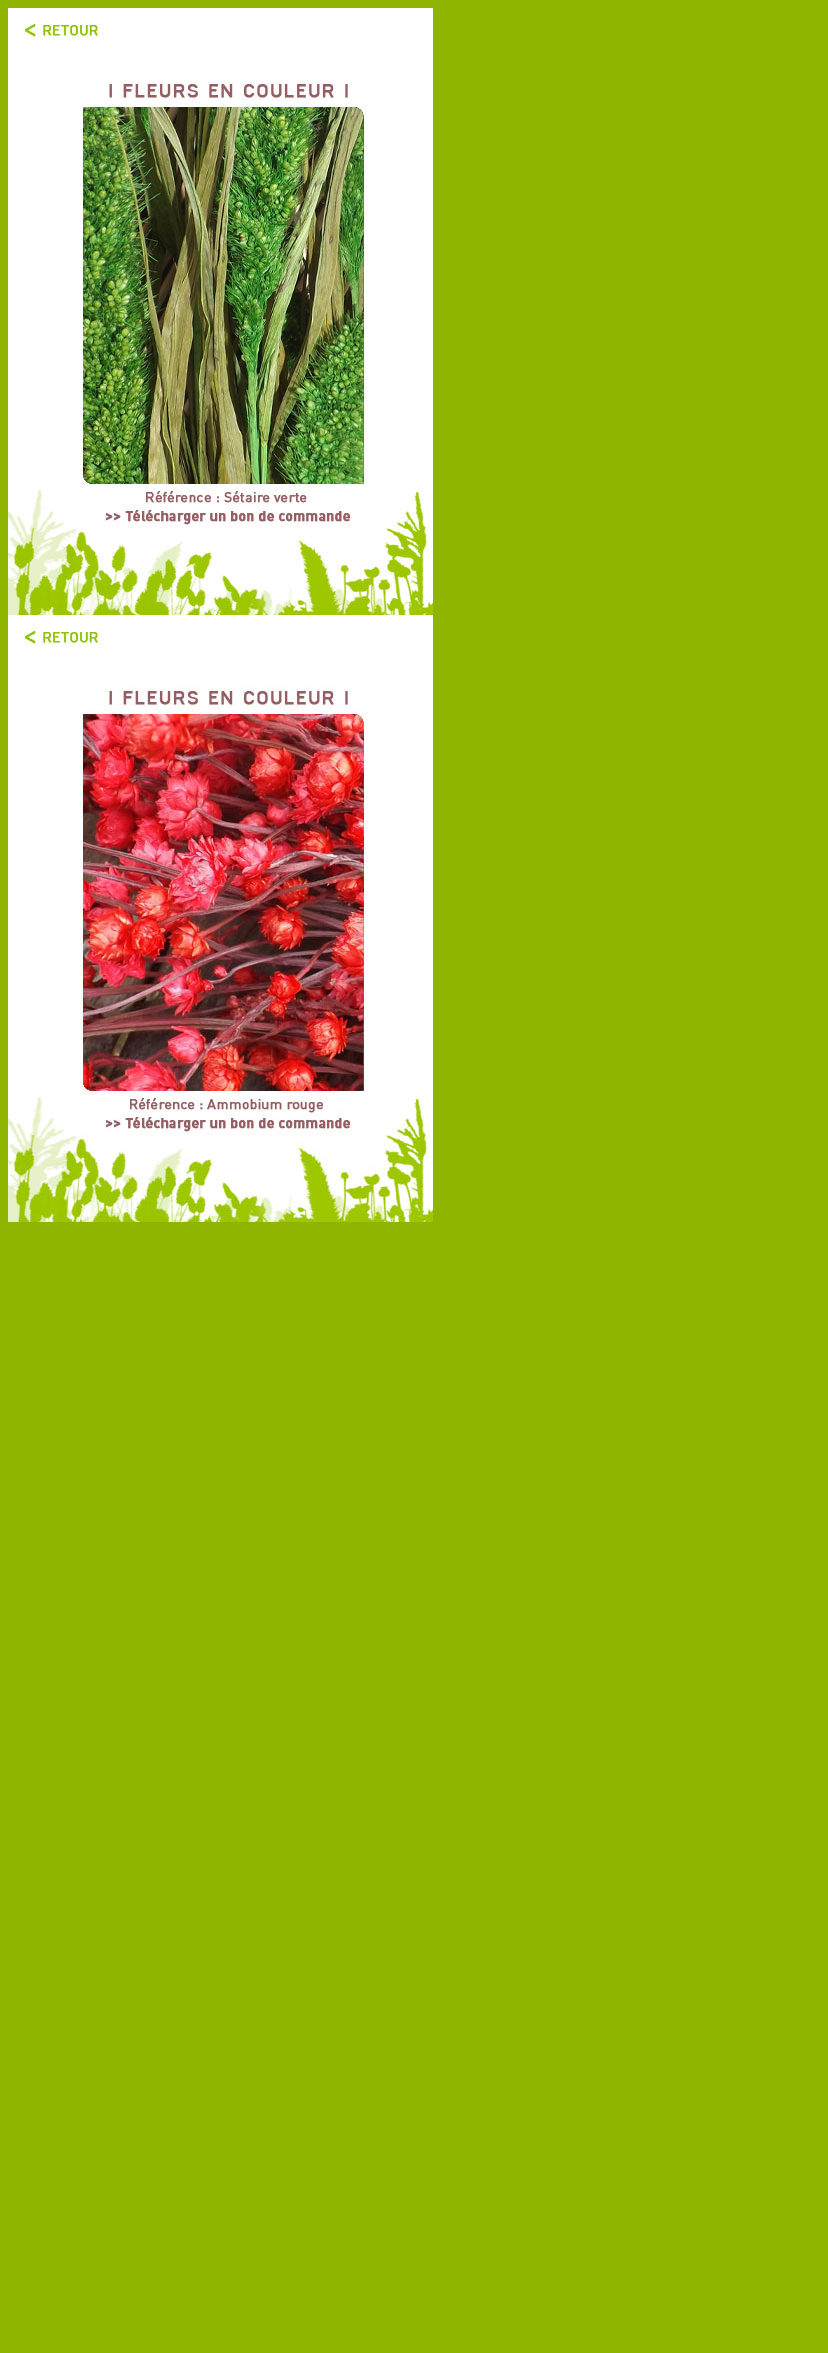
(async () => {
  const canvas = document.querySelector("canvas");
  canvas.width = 828;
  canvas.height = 2353;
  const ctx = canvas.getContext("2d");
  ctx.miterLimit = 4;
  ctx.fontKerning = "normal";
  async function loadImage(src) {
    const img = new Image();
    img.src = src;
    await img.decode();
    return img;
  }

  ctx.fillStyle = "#8fb500";
  ctx.fillRect(0, 0, 828, 2353);
  ctx.drawImage(await loadImage("img/1.png"), 8, 8, 425, 607);
  ctx.drawImage(await loadImage("img/2.png"), 8, 615, 425, 607);
})();
